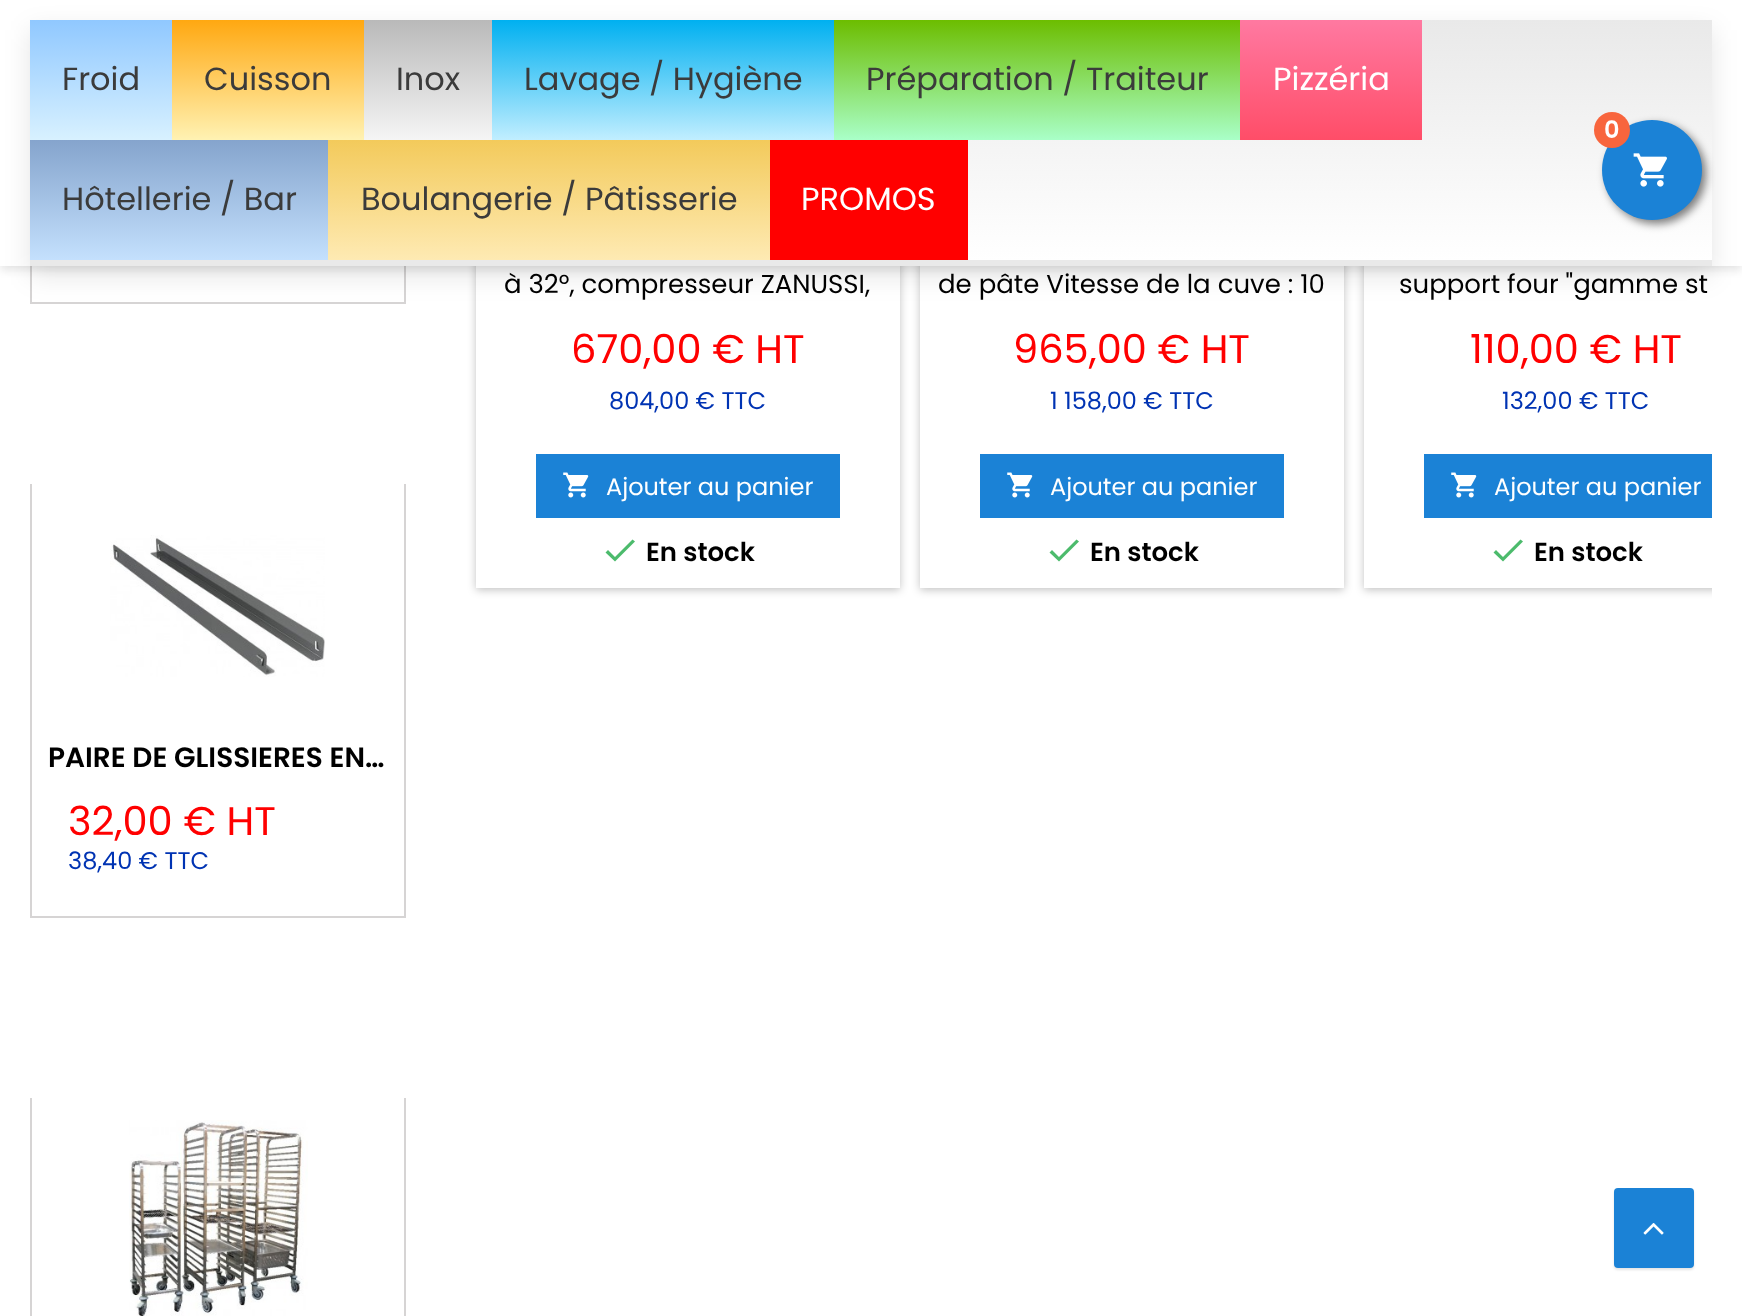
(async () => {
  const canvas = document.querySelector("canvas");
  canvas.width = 1742;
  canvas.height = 1316;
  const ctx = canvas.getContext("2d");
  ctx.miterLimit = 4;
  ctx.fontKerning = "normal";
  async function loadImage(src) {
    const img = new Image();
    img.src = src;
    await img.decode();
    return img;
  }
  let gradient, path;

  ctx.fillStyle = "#ffffff";
  ctx.fillRect(0, 0, 1742, 1316);
  ctx.strokeStyle = "#d6d4d4";
  ctx.lineWidth = 2;
  ctx.strokeRect(31, -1, 374, 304);
  ctx.fillStyle = "rgba(0, 0, 0, 0.1)";
  ctx.filter = "blur(4px)";
  ctx.beginPath();
  ctx.rect(0, 4, 1742, 266);
  ctx.fill();
  ctx.filter = "none";
  ctx.save();
  path = new Path2D("M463 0H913V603H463ZM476-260H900V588H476Z");
  ctx.clip(path, "evenodd");
  ctx.fillStyle = "rgba(0, 0, 0, 0.24)";
  ctx.filter = "blur(4px)";
  ctx.beginPath();
  ctx.rect(476, -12, 424, 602);
  ctx.fill();
  ctx.filter = "none";
  ctx.restore();
  ctx.save();
  path = new Path2D("M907 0H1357V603H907ZM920-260H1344V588H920Z");
  ctx.clip(path, "evenodd");
  ctx.fillStyle = "rgba(0, 0, 0, 0.24)";
  ctx.filter = "blur(4px)";
  ctx.beginPath();
  ctx.rect(920, -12, 424, 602);
  ctx.fill();
  ctx.filter = "none";
  ctx.restore();
  ctx.save();
  ctx.beginPath();
  ctx.rect(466, 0, 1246, 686);
  ctx.clip();
  path = new Path2D("M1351 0H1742V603H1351ZM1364-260H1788V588H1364Z");
  ctx.clip(path, "evenodd");
  ctx.fillStyle = "rgba(0, 0, 0, 0.24)";
  ctx.filter = "blur(4px)";
  ctx.beginPath();
  ctx.rect(1364, -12, 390, 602);
  ctx.fill();
  ctx.filter = "none";
  ctx.restore();
  ctx.fillStyle = "#ffffff";
  ctx.fillRect(0, 0, 1742, 266);
  ctx.fillStyle = "rgba(0, 0, 0, 0.1)";
  ctx.filter = "blur(13px)";
  ctx.beginPath();
  ctx.rect(30, 30, 1682, 246);
  ctx.fill();
  ctx.filter = "none";
  gradient = ctx.createLinearGradient(871, 20, 871, 260);
  gradient.addColorStop(0, "#e9e9e9");
  gradient.addColorStop(1, "#ffffff");
  ctx.fillStyle = gradient;
  ctx.fillRect(968, 20, 744, 240);
  ctx.fillStyle = "#e9e9e9";
  ctx.fillRect(30, 260, 1682, 6);
  gradient = ctx.createLinearGradient(101, 20, 101, 140);
  gradient.addColorStop(0, "#90c8ff");
  gradient.addColorStop(1, "#d8f1ff");
  ctx.fillStyle = gradient;
  ctx.fillRect(30, 20, 142, 120);
  gradient = ctx.createLinearGradient(268, 20, 268, 140);
  gradient.addColorStop(0, "#ffa811");
  gradient.addColorStop(1, "#fff2b3");
  ctx.fillStyle = gradient;
  ctx.fillRect(172, 20, 192, 120);
  gradient = ctx.createLinearGradient(428, 20, 428, 140);
  gradient.addColorStop(0, "#b9b9b9");
  gradient.addColorStop(1, "#f5f5f5");
  ctx.fillStyle = gradient;
  ctx.fillRect(364, 20, 128, 120);
  gradient = ctx.createLinearGradient(663, 20, 663, 140);
  gradient.addColorStop(0, "#00b0f0");
  gradient.addColorStop(1, "#c1eeff");
  ctx.fillStyle = gradient;
  ctx.fillRect(492, 20, 342, 120);
  gradient = ctx.createLinearGradient(1037, 20, 1037, 140);
  gradient.addColorStop(0, "#6cbd00");
  gradient.addColorStop(1, "#a9ffc8");
  ctx.fillStyle = gradient;
  ctx.fillRect(834, 20, 406, 120);
  gradient = ctx.createLinearGradient(1331, 20, 1331, 140);
  gradient.addColorStop(0, "#ff79a1");
  gradient.addColorStop(1, "#ff4d68");
  ctx.fillStyle = gradient;
  ctx.fillRect(1240, 20, 182, 120);
  gradient = ctx.createLinearGradient(179, 140, 179, 260);
  gradient.addColorStop(0, "#85a4cd");
  gradient.addColorStop(1, "#c4e0fd");
  ctx.fillStyle = gradient;
  ctx.fillRect(30, 140, 298, 120);
  gradient = ctx.createLinearGradient(549, 140, 549, 260);
  gradient.addColorStop(0, "#f3ca5b");
  gradient.addColorStop(1, "#feeab3");
  ctx.fillStyle = gradient;
  ctx.fillRect(328, 140, 442, 120);
  ctx.fillStyle = "#ff0000";
  ctx.fillRect(770, 140, 198, 120);
  ctx.fillStyle = "rgba(0, 0, 0, 0.5)";
  ctx.filter = "blur(4px)";
  ctx.beginPath();
  ctx.roundRect(1606, 124, 100, 100, 50);
  ctx.fill();
  ctx.filter = "none";
  ctx.fillStyle = "#1b82d6";
  ctx.beginPath();
  ctx.arc(1652, 170, 50, 0, Math.PI * 2);
  ctx.fill();
  ctx.fillStyle = "#f8653d";
  ctx.beginPath();
  ctx.arc(1612, 130, 18, 0, Math.PI * 2);
  ctx.fill();
  ctx.drawImage(await loadImage("img/1.png"), 1633, 153, 34, 34);
  ctx.fillStyle = "#1b82d6";
  ctx.fillRect(536, 454, 304, 64);
  ctx.drawImage(await loadImage("img/2.png"), 563, 472, 26, 26);
  ctx.fillStyle = "#4cbb6c";
  path = new Path2D("M615 557L632.5 539.5L635 541.5L615 561.5L605.5 552.5L608 550Z");
  ctx.fill(path);
  ctx.fillStyle = "#1b82d6";
  ctx.fillRect(980, 454, 304, 64);
  ctx.drawImage(await loadImage("img/2.png"), 1007, 472, 26, 26);
  ctx.fillStyle = "#4cbb6c";
  path = new Path2D("M1059 557L1076.5 539.5L1079 541.5L1059 561.5L1049.5 552.5L1052 550Z");
  ctx.fill(path);
  ctx.fillStyle = "#1b82d6";
  ctx.fillRect(1424, 454, 288, 64);
  ctx.drawImage(await loadImage("img/2.png"), 1451, 472, 26, 26);
  ctx.fillStyle = "#4cbb6c";
  path = new Path2D("M1503 557L1520.5 539.5L1523 541.5L1503 561.5L1493.5 552.5L1496 550Z");
  ctx.fill(path);
  for (const [x, y, w, h, color] of [
    [404, 484, 2, 434, "#d6d4d4"],
    [30, 916, 376, 2, "#d6d4d4"],
    [30, 484, 2, 434, "#d6d4d4"],
  ]) {
    ctx.fillStyle = color;
    ctx.fillRect(x, y, w, h);
  }
  ctx.drawImage(await loadImage("img/3.png"), 110, 535, 215, 142);
  ctx.fillRect(404, 1098, 2, 218);
  ctx.fillRect(30, 1098, 2, 218);
  ctx.drawImage(await loadImage("img/4.png"), 129, 1120, 179, 196);
  ctx.fillStyle = "rgba(0, 0, 0, 0.1)";
  ctx.filter = "blur(1px)";
  ctx.beginPath();
  ctx.roundRect(1614, 1190, 80, 80, 4);
  ctx.fill();
  ctx.filter = "none";
  ctx.fillStyle = "#1b82d6";
  ctx.beginPath();
  ctx.roundRect(1614, 1188, 80, 80, 4);
  ctx.fill();
  ctx.drawImage(await loadImage("img/5.png"), 1643, 1223, 21, 12);
  ctx.font = "32px Poppins";
  ctx.fillStyle = "#3b3b3b";
  for (const [text, x, y] of [
    ["Froid", 62, 90],
    ["Cuisson", 204, 90],
    ["Inox", 396, 90],
    ["Lavage / Hygiène", 524, 90],
    ["Préparation / Traiteur", 866, 90],
  ]) {
    ctx.fillText(text, x, y);
  }
  ctx.fillStyle = "#ffffff";
  ctx.fillText("Pizzéria", 1273, 90);
  ctx.fillStyle = "#3b3b3b";
  ctx.fillText("Hôtellerie / Bar", 62, 210);
  ctx.fillText("Boulangerie / Pâtisserie", 361, 210);
  ctx.fillStyle = "#ffffff";
  ctx.fillText("PROMOS", 801, 210);
  ctx.font = "600 24px Poppins";
  ctx.fillText("0", 1604, 138);
  ctx.font = "26px Poppins";
  ctx.fillStyle = "#000000";
  ctx.fillText("à 32°, compresseur ZANUSSI,", 504, 293);
  ctx.font = "40px Poppins";
  ctx.fillStyle = "#ff0000";
  ctx.fillText("670,00 € HT", 571, 363);
  ctx.font = "24px Poppins";
  ctx.fillStyle = "#0033b3";
  ctx.fillText("804,00 € TTC", 609, 409);
  ctx.fillStyle = "#ffffff";
  ctx.fillText("Ajouter au panier", 606, 495);
  ctx.font = "600 26px Poppins";
  ctx.fillStyle = "#000000";
  ctx.fillText("En stock", 646, 561);
  ctx.font = "26px Poppins";
  ctx.fillText("de pâte Vitesse de la cuve : 10", 938, 293);
  ctx.font = "40px Poppins";
  ctx.fillStyle = "#ff0000";
  ctx.fillText("965,00 € HT", 1013, 363);
  ctx.font = "24px Poppins";
  ctx.fillStyle = "#0033b3";
  ctx.fillText("1 158,00 € TTC", 1050, 409);
  ctx.fillStyle = "#ffffff";
  ctx.fillText("Ajouter au panier", 1050, 495);
  ctx.font = "600 26px Poppins";
  ctx.fillStyle = "#000000";
  ctx.fillText("En stock", 1090, 561);
  ctx.font = "26px Poppins";
  ctx.fillText("support four \"gamme st", 1399, 293);
  ctx.font = "40px Poppins";
  ctx.fillStyle = "#ff0000";
  ctx.fillText("110,00 € HT", 1470, 363);
  ctx.font = "24px Poppins";
  ctx.fillStyle = "#0033b3";
  ctx.fillText("132,00 € TTC", 1502, 409);
  ctx.fillStyle = "#ffffff";
  ctx.fillText("Ajouter au panier", 1494, 495);
  ctx.font = "600 26px Poppins";
  ctx.fillStyle = "#000000";
  ctx.fillText("En stock", 1534, 561);
  ctx.font = "600 28px Poppins";
  ctx.fillText("PAIRE DE GLISSIERES EN…", 48, 767);
  ctx.font = "40px Poppins";
  ctx.fillStyle = "#ff0000";
  ctx.fillText("32,00 € HT", 68, 835);
  ctx.font = "24px Poppins";
  ctx.fillStyle = "#0033b3";
  ctx.fillText("38,40 € TTC", 68, 869);
})();
